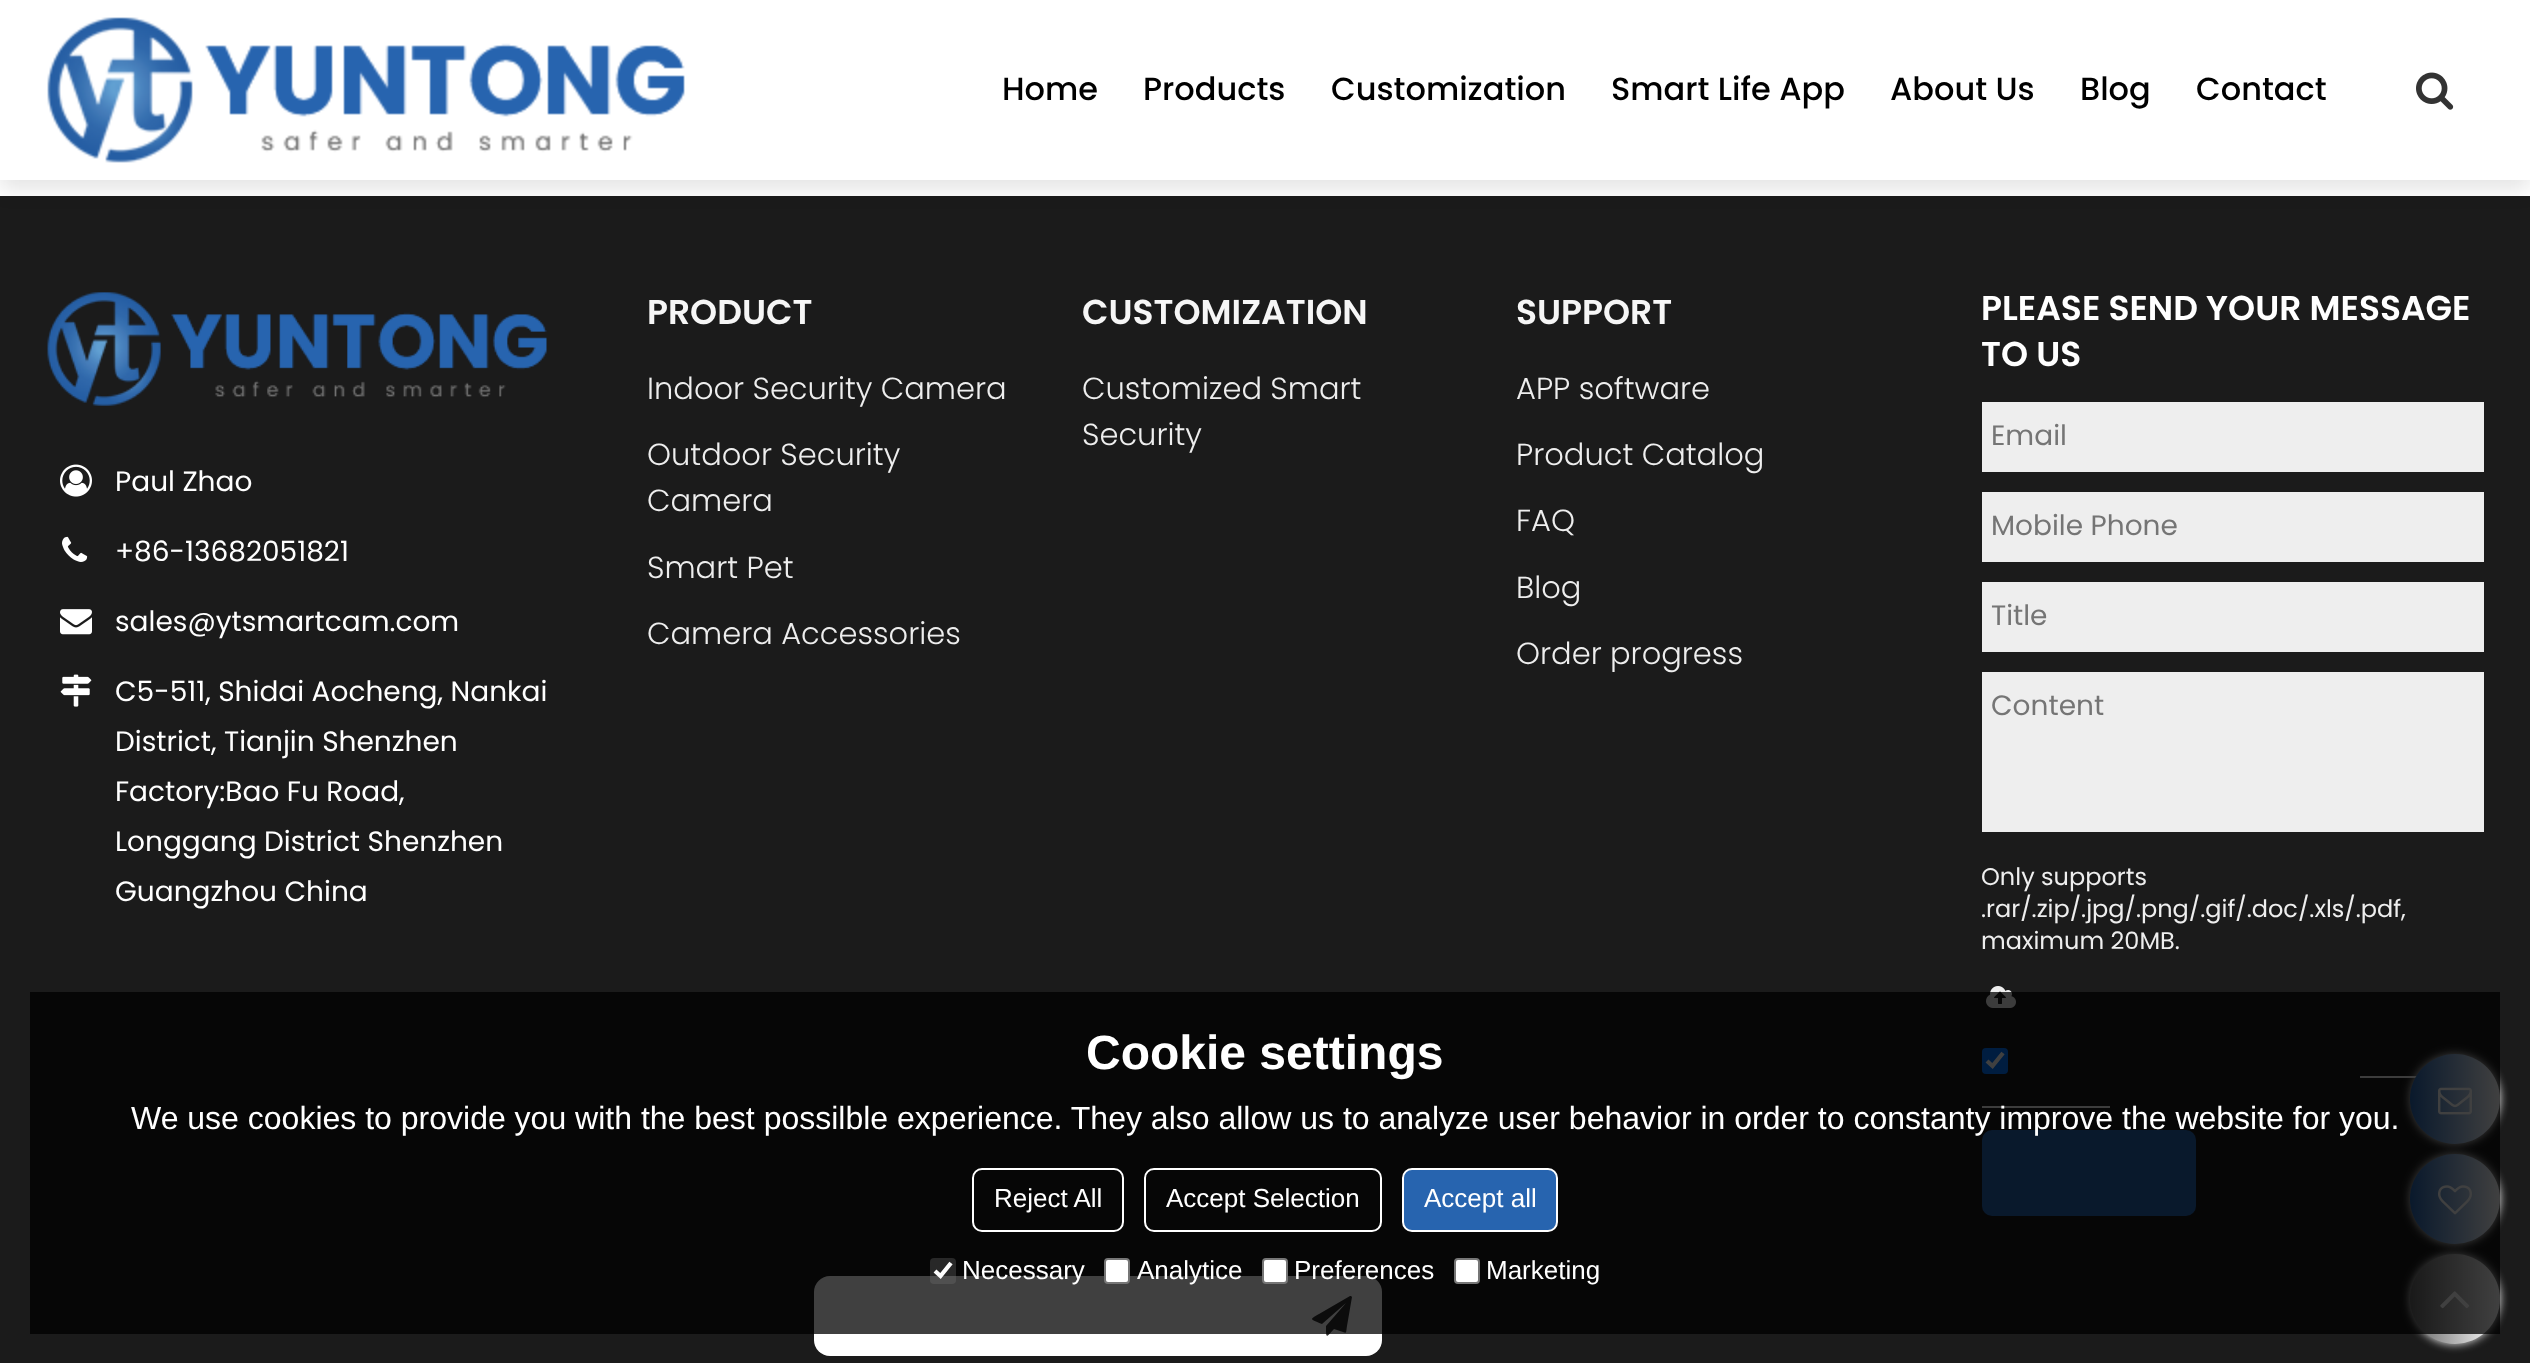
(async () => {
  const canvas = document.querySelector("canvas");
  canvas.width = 2530;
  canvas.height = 1363;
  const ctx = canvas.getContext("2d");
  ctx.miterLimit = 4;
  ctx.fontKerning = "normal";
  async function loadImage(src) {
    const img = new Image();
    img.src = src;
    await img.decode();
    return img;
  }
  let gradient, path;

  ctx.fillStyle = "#ffffff";
  ctx.fillRect(0, 0, 2530, 1363);
  ctx.fillStyle = "#1b1b1b";
  ctx.fillRect(0, 196, 2530, 1167);
  ctx.fillStyle = "rgba(0, 0, 0, 0.1)";
  ctx.filter = "blur(10px)";
  ctx.beginPath();
  ctx.rect(0, 10, 2530, 180);
  ctx.fill();
  ctx.filter = "none";
  ctx.fillStyle = "#ffffff";
  ctx.fillRect(0, 0, 2530, 180);
  ctx.drawImage(await loadImage("img/1.png"), 47, 17, 638, 146);
  ctx.drawImage(await loadImage("img/2.png"), 2416, 72, 38, 38);
  ctx.drawImage(await loadImage("img/3.png"), 47, 292, 500, 114);
  ctx.drawImage(await loadImage("img/4.png"), 60, 464, 32, 33);
  ctx.drawImage(await loadImage("img/5.png"), 62, 536, 26, 26);
  ctx.drawImage(await loadImage("img/6.png"), 60, 609, 32, 26);
  ctx.drawImage(await loadImage("img/7.png"), 60, 674, 32, 33);
  for (const [x, y, w, h, color] of [
    [1982, 402, 502, 70, "#eeeeee"],
    [1982, 492, 502, 70, "#eeeeee"],
    [1982, 582, 502, 70, "#eeeeee"],
    [1982, 672, 502, 160, "#eeeeee"],
  ]) {
    ctx.fillStyle = color;
    ctx.fillRect(x, y, w, h);
  }
  ctx.drawImage(await loadImage("img/8.png"), 1986, 986, 30, 22);
  ctx.fillStyle = "#0075ff";
  ctx.beginPath();
  ctx.roundRect(1982, 1048, 26, 26, 4);
  ctx.fill();
  path = new Path2D("M1987 1061L1992.5 1066L2003 1053");
  ctx.strokeStyle = "#ffffff";
  ctx.lineWidth = 4.2;
  ctx.stroke(path);
  ctx.fillStyle = "#eeeeee";
  ctx.fillRect(2360, 1076, 57, 2);
  ctx.fillRect(1982, 1106, 128, 2);
  ctx.fillStyle = "#2764af";
  ctx.beginPath();
  ctx.roundRect(1982, 1130, 214, 86, 10);
  ctx.fill();
  ctx.fillStyle = "#ffffff";
  ctx.beginPath();
  ctx.roundRect(814, 1276, 568, 80, 16);
  ctx.fill();
  ctx.fillStyle = "#333333";
  path = new Path2D("M1351 1296L1352 1297L1347 1326C1346 1332 1347 1334 1343 1332L1334 1329C1326 1338 1326 1339 1326 1326L1346 1303L1322 1324C1311 1319 1308 1320 1319 1314L1350 1296Z");
  ctx.fill(path);
  ctx.fillStyle = "#eeeeee";
  ctx.filter = "blur(5px)";
  ctx.beginPath();
  ctx.roundRect(2410, 1054, 90, 90, 45);
  ctx.fill();
  ctx.filter = "none";
  gradient = ctx.createLinearGradient(2410, 1099, 2500, 1099);
  gradient.addColorStop(0, "#2764af");
  gradient.addColorStop(1, "#ffffff");
  ctx.fillStyle = gradient;
  ctx.beginPath();
  ctx.arc(2455, 1099, 45, 0, Math.PI * 2);
  ctx.fill();
  ctx.drawImage(await loadImage("img/9.png"), 2438, 1087, 34, 28);
  ctx.fillStyle = "#eeeeee";
  ctx.filter = "blur(5px)";
  ctx.beginPath();
  ctx.roundRect(2410, 1154, 90, 90, 45);
  ctx.fill();
  ctx.filter = "none";
  gradient = ctx.createLinearGradient(2410, 1199, 2500, 1199);
  gradient.addColorStop(0, "#2764af");
  gradient.addColorStop(1, "#ffffff");
  ctx.fillStyle = gradient;
  ctx.beginPath();
  ctx.arc(2455, 1199, 45, 0, Math.PI * 2);
  ctx.fill();
  ctx.drawImage(await loadImage("img/10.png"), 2438, 1185, 34, 30);
  ctx.fillStyle = "#eeeeee";
  ctx.filter = "blur(5px)";
  ctx.beginPath();
  ctx.roundRect(2410, 1254, 90, 90, 45);
  ctx.fill();
  ctx.filter = "none";
  gradient = ctx.createLinearGradient(2410, 1299, 2500, 1299);
  gradient.addColorStop(0, "#666666");
  gradient.addColorStop(1, "#ffffff");
  ctx.fillStyle = gradient;
  ctx.beginPath();
  ctx.arc(2455, 1299, 45, 0, Math.PI * 2);
  ctx.fill();
  ctx.drawImage(await loadImage("img/11.png"), 2440, 1291, 30, 18);
  ctx.fillStyle = "rgba(0, 0, 0, 0.75)";
  ctx.fillRect(30, 992, 2470, 342);
  ctx.beginPath();
  ctx.roundRect(973, 1169, 150, 62, 9);
  ctx.lineWidth = 2;
  ctx.stroke();
  ctx.beginPath();
  ctx.roundRect(1145, 1169, 236, 62, 9);
  ctx.stroke();
  ctx.fillStyle = "#2764af";
  ctx.beginPath();
  ctx.roundRect(1403, 1169, 154, 62, 9);
  ctx.fill();
  ctx.stroke();
  ctx.fillStyle = "rgba(118, 118, 118, 0.3)";
  ctx.beginPath();
  ctx.roundRect(930, 1258, 26, 26, 4);
  ctx.fill();
  path = new Path2D("M935 1271L940.5 1276L951 1263");
  ctx.lineWidth = 4.2;
  ctx.stroke(path);
  ctx.fillStyle = "#ffffff";
  ctx.beginPath();
  ctx.roundRect(1105, 1259, 24, 24, 3);
  ctx.fill();
  ctx.strokeStyle = "#767676";
  ctx.lineWidth = 2;
  ctx.stroke();
  ctx.beginPath();
  ctx.roundRect(1263, 1259, 24, 24, 3);
  ctx.fill();
  ctx.stroke();
  ctx.beginPath();
  ctx.roundRect(1455, 1259, 24, 24, 3);
  ctx.fill();
  ctx.stroke();
  ctx.font = "500 32px Poppins";
  ctx.fillStyle = "#000000";
  for (const [text, x, y] of [
    ["Home", 1002, 100],
    ["Products", 1143, 100],
    ["Customization", 1331, 100],
    ["Smart Life App", 1611, 100],
    ["About Us", 1890, 100],
    ["Blog", 2080, 100],
    ["Contact", 2196, 100],
  ]) {
    ctx.fillText(text, x, y);
  }
  ctx.font = "28px Poppins";
  ctx.fillStyle = "#ffffff";
  for (const [text, x, y] of [
    ["Paul Zhao", 115, 491],
    ["+86-13682051821", 115, 561],
    ["sales@ytsmartcam.com", 115, 631],
    ["C5-511, Shidai Aocheng, Nankai", 115, 701],
    ["District, Tianjin Shenzhen", 115, 751],
    ["Factory:Bao Fu Road,", 115, 801],
    ["Longgang District Shenzhen", 115, 851],
    ["Guangzhou China", 115, 901],
  ]) {
    ctx.fillText(text, x, y);
  }
  ctx.font = "600 34.5px Poppins";
  ctx.fillStyle = "#f6f6f6";
  ctx.fillText("PRODUCT", 647, 324);
  ctx.font = "300 30.5px Poppins";
  ctx.fillStyle = "#eeeeee";
  for (const [text, x, y] of [
    ["Indoor Security Camera", 647, 399],
    ["Outdoor Security", 647, 465],
    ["Camera", 647, 511],
    ["Smart Pet", 647, 578],
    ["Camera Accessories", 647, 644],
  ]) {
    ctx.fillText(text, x, y);
  }
  ctx.font = "600 34.5px Poppins";
  ctx.fillStyle = "#f6f6f6";
  ctx.fillText("CUSTOMIZATION", 1082, 324);
  ctx.font = "300 30.5px Poppins";
  ctx.fillStyle = "#eeeeee";
  ctx.fillText("Customized Smart", 1082, 399);
  ctx.fillText("Security", 1082, 445);
  ctx.font = "600 34.5px Poppins";
  ctx.fillStyle = "#f6f6f6";
  ctx.fillText("SUPPORT", 1516, 324);
  ctx.font = "300 30.5px Poppins";
  ctx.fillStyle = "#eeeeee";
  for (const [text, x, y] of [
    ["APP software", 1516, 399],
    ["Product Catalog", 1516, 465],
    ["FAQ", 1516, 531],
    ["Blog", 1516, 598],
    ["Order progress", 1516, 664],
  ]) {
    ctx.fillText(text, x, y);
  }
  ctx.font = "600 34.5px Poppins";
  ctx.fillStyle = "#ffffff";
  ctx.fillText("PLEASE SEND YOUR MESSAGE", 1981, 320);
  ctx.fillText("TO US", 1981, 366);
  ctx.font = "28px Poppins";
  ctx.fillStyle = "#757575";
  for (const [text, x, y] of [
    ["Email", 1991, 445],
    ["Mobile Phone", 1991, 535],
    ["Title", 1991, 625],
    ["Content", 1991, 715],
  ]) {
    ctx.fillText(text, x, y);
  }
  ctx.font = "24px Poppins";
  ctx.fillStyle = "#eeeeee";
  for (const [text, x, y] of [
    ["Only supports", 1981, 885],
    [".rar/.zip/.jpg/.png/.gif/.doc/.xls/.pdf,", 1981, 917],
    ["maximum 20MB.", 1981, 949],
  ]) {
    ctx.fillText(text, x, y);
  }
  ctx.font = "bold 48px Liberation Sans";
  ctx.fillStyle = "#ffffff";
  ctx.fillText("Cookie settings", 1086, 1069);
  ctx.font = "32px Liberation Sans";
  ctx.fillText("We use cookies to provide you with the best possilble experience. They also allow us to analyze user behavior in order to constanty improve the website for you.", 131, 1129);
  ctx.font = "26px Liberation Sans";
  for (const [text, x, y] of [
    ["Reject All", 994, 1207],
    ["Accept Selection", 1166, 1207],
    ["Accept all", 1424, 1207],
    ["Necessary", 962, 1279],
    ["Analytice", 1137, 1279],
    ["Preferences", 1294, 1279],
    ["Marketing", 1486, 1279],
  ]) {
    ctx.fillText(text, x, y);
  }
})();
